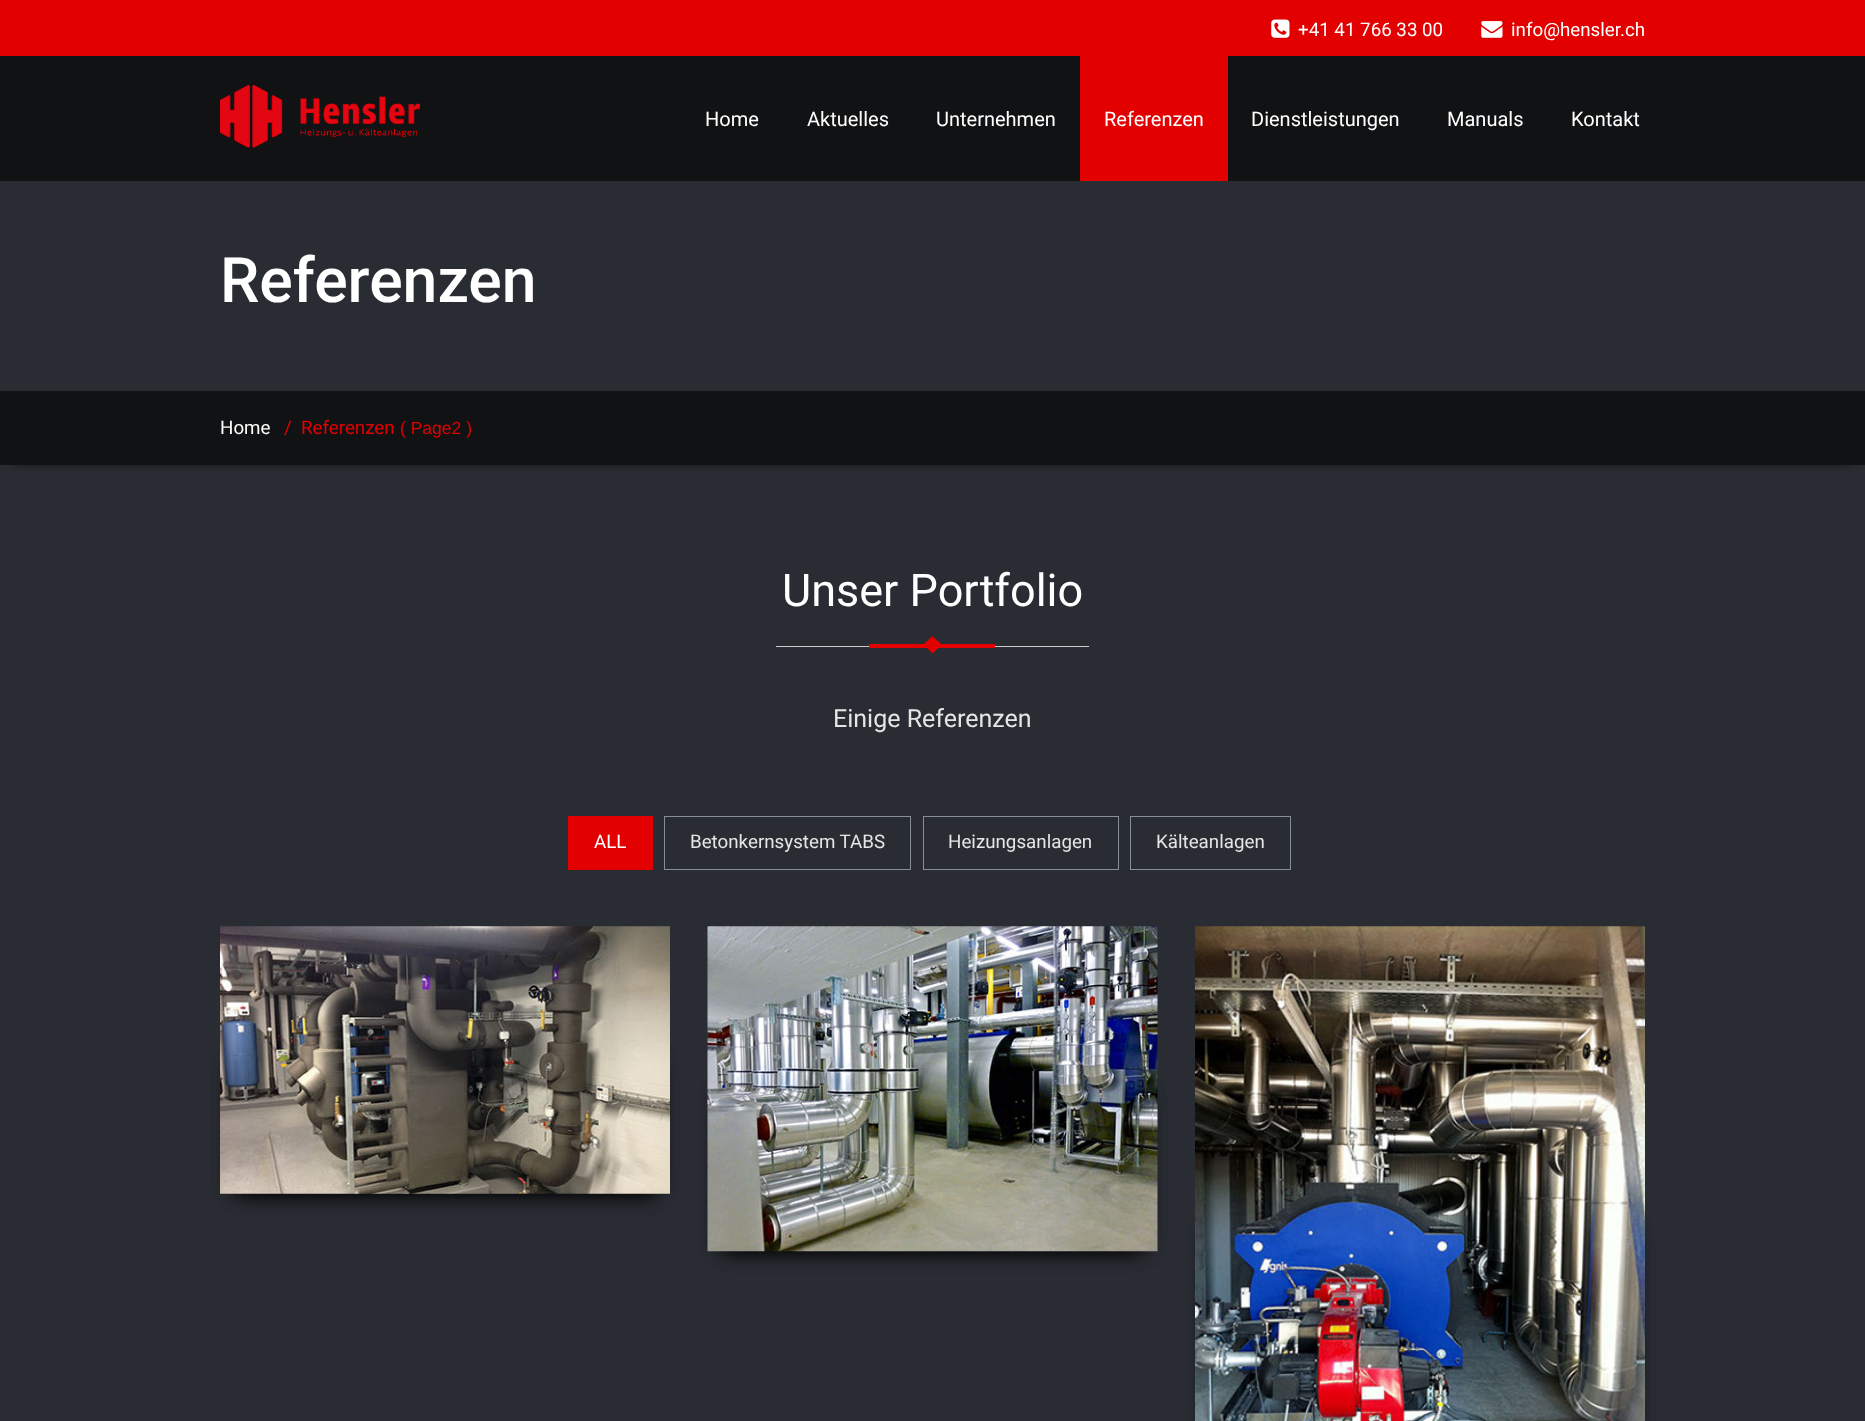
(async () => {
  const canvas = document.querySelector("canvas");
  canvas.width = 1865;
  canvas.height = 1421;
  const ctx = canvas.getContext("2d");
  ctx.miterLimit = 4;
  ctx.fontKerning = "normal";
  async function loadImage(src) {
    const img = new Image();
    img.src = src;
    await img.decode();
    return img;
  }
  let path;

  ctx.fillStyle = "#2a2c33";
  ctx.fillRect(0, 0, 1865, 1421);
  ctx.fillStyle = "#e20000";
  ctx.fillRect(0, 0, 1865, 56);
  ctx.drawImage(await loadImage("img/1.png"), 1271, 19, 19, 19);
  ctx.drawImage(await loadImage("img/2.png"), 1481, 21, 22, 17);
  ctx.save();
  ctx.beginPath();
  ctx.rect(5, 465, 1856, 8);
  ctx.clip();
  ctx.fillStyle = "#000000";
  ctx.filter = "blur(6px)";
  ctx.beginPath();
  ctx.rect(13, 78, 1840, 383);
  ctx.fill();
  ctx.filter = "none";
  ctx.restore();
  ctx.fillStyle = "#111214";
  ctx.fillRect(0, 56, 1865, 125);
  ctx.drawImage(await loadImage("img/3.png"), 220, 85, 200, 63);
  for (const [x, y, w, h, color] of [
    [1080, 56, 148, 125, "#e20000"],
    [0, 391, 1865, 74, "#111214"],
    [776, 646, 313, 1, "#cccccc"],
    [869, 644, 126, 4, "#e20000"],
  ]) {
    ctx.fillStyle = color;
    ctx.fillRect(x, y, w, h);
  }
  path = new Path2D("M932.5 636L941.5 644.5L932.5 653.5L923.5 644.5Z");
  ctx.fill(path);
  ctx.fillRect(568, 816, 85, 54);
  ctx.strokeStyle = "#888d9a";
  ctx.strokeRect(664.5, 816.5, 246, 53);
  ctx.strokeRect(923.5, 816.5, 195, 53);
  ctx.strokeRect(1130.5, 816.5, 160, 53);
  ctx.fillStyle = "rgba(0, 0, 0, 0.8)";
  ctx.filter = "blur(9.5px)";
  ctx.beginPath();
  ctx.roundRect(233, 1060, 425, 134, 13);
  ctx.fill();
  ctx.filter = "none";
  ctx.filter = "blur(9.5px)";
  ctx.beginPath();
  ctx.roundRect(233, 1060, 425, 134, 13);
  ctx.fill();
  ctx.filter = "none";
  ctx.drawImage(await loadImage("img/4.png"), 220, 926, 450, 268);
  ctx.filter = "blur(9.5px)";
  ctx.beginPath();
  ctx.roundRect(720, 1089, 425, 162, 13);
  ctx.fill();
  ctx.filter = "none";
  ctx.filter = "blur(9.5px)";
  ctx.beginPath();
  ctx.roundRect(720, 1089, 425, 162, 13);
  ctx.fill();
  ctx.filter = "none";
  ctx.drawImage(await loadImage("img/5.png"), 707, 926, 451, 326);
  ctx.filter = "blur(9.5px)";
  ctx.beginPath();
  ctx.roundRect(1208, 1228, 425, 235, 13);
  ctx.fill();
  ctx.filter = "none";
  ctx.filter = "blur(9.5px)";
  ctx.beginPath();
  ctx.roundRect(1208, 1228, 425, 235, 13);
  ctx.fill();
  ctx.filter = "none";
  ctx.drawImage(await loadImage("img/6.png"), 1195, 926, 450, 495);
  ctx.font = "18.75px Roboto";
  ctx.fillStyle = "#ffffff";
  ctx.fillText("+41 41 766 33 00", 1298, 36);
  ctx.fillText("info@hensler.ch", 1511, 36);
  ctx.font = "20px Roboto";
  for (const [text, x, y] of [
    ["Home", 705, 126],
    ["Aktuelles", 807, 126],
    ["Unternehmen", 936, 126],
    ["Referenzen", 1104, 126],
    ["Dienstleistungen", 1251, 126],
    ["Manuals", 1447, 126],
    ["Kontakt", 1571, 126],
  ]) {
    ctx.fillText(text, x, y);
  }
  ctx.font = "500 62.5px Roboto";
  ctx.fillText("Referenzen", 220, 302);
  ctx.font = "18.75px Roboto";
  ctx.fillText("Home", 220, 434);
  ctx.fillStyle = "#e20000";
  ctx.fillText("/", 284, 434);
  ctx.fillText("Referenzen", 301, 434);
  ctx.font = "17.5px Liberation Sans";
  ctx.fillText("( Page2 )", 400, 434);
  ctx.font = "45px Roboto";
  ctx.fillStyle = "#ffffff";
  ctx.fillText("Unser Portfolio", 782, 606);
  ctx.font = "25px Roboto";
  ctx.fillStyle = "#e5e5e5";
  ctx.fillText("Einige Referenzen", 833, 727);
  ctx.font = "18.75px Roboto";
  ctx.fillStyle = "#ffffff";
  ctx.fillText("ALL", 594, 848);
  ctx.fillStyle = "#e5e5e5";
  for (const [text, x, y] of [
    ["Betonkernsystem TABS", 690, 848],
    ["Heizungsanlagen", 948, 848],
    ["Kälteanlagen", 1156, 848],
  ]) {
    ctx.fillText(text, x, y);
  }
})();
